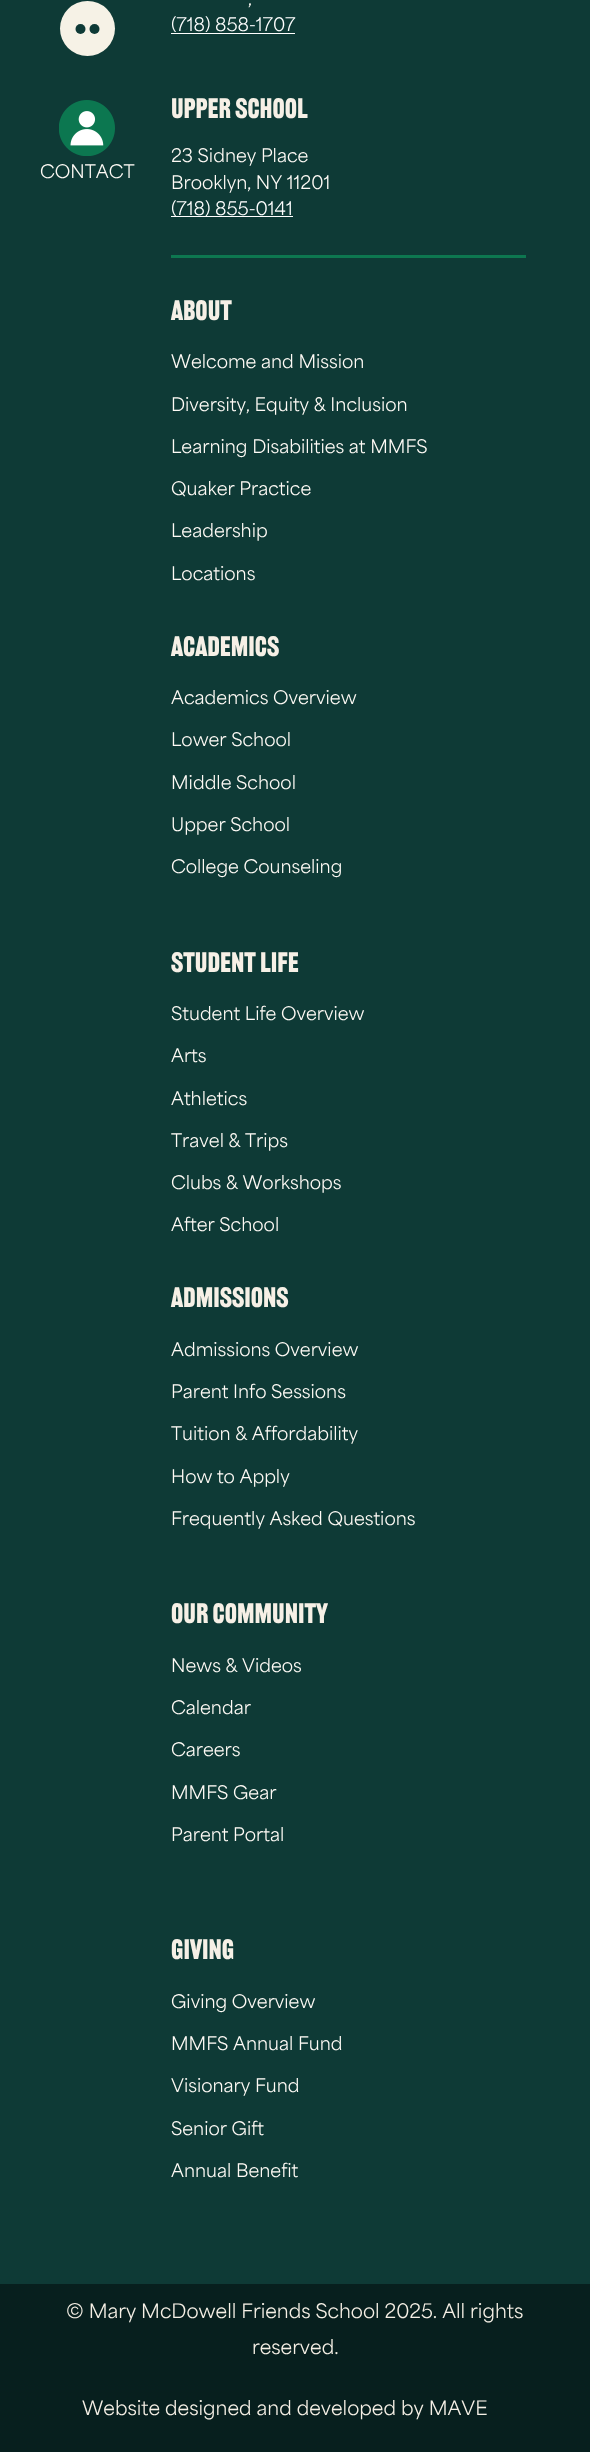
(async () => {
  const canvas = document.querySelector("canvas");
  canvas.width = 590;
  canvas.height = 2452;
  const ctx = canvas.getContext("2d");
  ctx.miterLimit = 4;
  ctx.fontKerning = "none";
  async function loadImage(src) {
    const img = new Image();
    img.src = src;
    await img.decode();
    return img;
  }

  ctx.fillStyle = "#0e3a36";
  ctx.fillRect(0, 0, 590, 2452);
  ctx.fillStyle = "#f6f2e6";
  ctx.beginPath();
  ctx.arc(87.5, 28.5, 27.5, 0, Math.PI * 2);
  ctx.fill();
  ctx.fillStyle = "#0e3a36";
  ctx.beginPath();
  ctx.arc(80.5, 29, 5, 0, Math.PI * 2);
  ctx.fill();
  ctx.beginPath();
  ctx.arc(94.5, 29, 5, 0, Math.PI * 2);
  ctx.fill();
  ctx.drawImage(await loadImage("img/1.png"), 59, 100, 56, 56);
  for (const [x, y, w, h, color] of [
    [171, 33, 124, 1, "#ffffff"],
    [171, 216, 122, 1, "#ffffff"],
    [171, 255, 355, 3, "#0d7750"],
    [0, 2284, 590, 168, "#071f1e"],
  ]) {
    ctx.fillStyle = color;
    ctx.fillRect(x, y, w, h);
  }
  ctx.font = "17.5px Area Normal";
  ctx.fillStyle = "#fffbf6";
  ctx.fillText("CONTACT", 40, 178);
  ctx.fillText(",", 248, 5);
  ctx.fillStyle = "#ffffff";
  ctx.fillText("(718) 858-1707", 171, 31);
  ctx.font = "27.5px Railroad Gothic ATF";
  ctx.fillStyle = "#f6f0e6";
  ctx.fillText("upper school", 171, 118);
  ctx.font = "17.5px Area Normal";
  ctx.fillStyle = "#fffbf6";
  ctx.fillText("23 Sidney Place", 171, 162);
  ctx.fillText("Brooklyn, NY 11201", 171, 189);
  ctx.fillStyle = "#ffffff";
  ctx.fillText("(718) 855-0141", 171, 215);
  ctx.font = "27.5px Railroad Gothic ATF";
  ctx.fillStyle = "#f6f0e6";
  ctx.fillText("ABOUT", 171, 320);
  ctx.font = "17.5px Area Normal";
  ctx.fillStyle = "#fffbf6";
  for (const [text, x, y] of [
    ["Welcome and Mission", 171, 368],
    ["Diversity, Equity & Inclusion", 171, 411],
    ["Learning Disabilities at MMFS", 171, 453],
    ["Quaker Practice", 171, 495],
    ["Leadership", 171, 537],
    ["Locations", 171, 580],
  ]) {
    ctx.fillText(text, x, y);
  }
  ctx.font = "27.5px Railroad Gothic ATF";
  ctx.fillStyle = "#f6f0e6";
  ctx.fillText("ACADEMICS", 171, 656);
  ctx.font = "17.5px Area Normal";
  ctx.fillStyle = "#fffbf6";
  for (const [text, x, y] of [
    ["Academics Overview", 171, 704],
    ["Lower School", 171, 746],
    ["Middle School", 171, 789],
    ["Upper School", 171, 831],
    ["College Counseling", 171, 873],
  ]) {
    ctx.fillText(text, x, y);
  }
  ctx.font = "27.5px Railroad Gothic ATF";
  ctx.fillStyle = "#f6f0e6";
  ctx.fillText("STUDENT LIFE", 171, 972);
  ctx.font = "17.5px Area Normal";
  ctx.fillStyle = "#fffbf6";
  for (const [text, x, y] of [
    ["Student Life Overview", 171, 1020],
    ["Arts", 171, 1062],
    ["Athletics", 171, 1105],
    ["Travel &", 171, 1147],
    ["Trips", 245, 1147],
    ["Clubs & Workshops", 171, 1189],
    ["After School", 171, 1231],
  ]) {
    ctx.fillText(text, x, y);
  }
  ctx.font = "27.5px Railroad Gothic ATF";
  ctx.fillStyle = "#f6f0e6";
  ctx.fillText("Admissions", 171, 1307);
  ctx.font = "17.5px Area Normal";
  ctx.fillStyle = "#fffbf6";
  for (const [text, x, y] of [
    ["Admissions Overview", 171, 1356],
    ["Parent Info Sessions", 171, 1398],
    ["Tuition & Affordability", 171, 1440],
    ["How to Apply", 171, 1483],
    ["Frequently Asked Questions", 171, 1525],
  ]) {
    ctx.fillText(text, x, y);
  }
  ctx.font = "27.5px Railroad Gothic ATF";
  ctx.fillStyle = "#f6f0e6";
  ctx.fillText("our community", 171, 1623);
  ctx.font = "17.5px Area Normal";
  ctx.fillStyle = "#fffbf6";
  for (const [text, x, y] of [
    ["News & Videos", 171, 1672],
    ["Calendar", 171, 1714],
    ["Careers", 171, 1756],
    ["MMFS Gear", 171, 1799],
    ["Parent Portal", 171, 1841],
  ]) {
    ctx.fillText(text, x, y);
  }
  ctx.font = "27.5px Railroad Gothic ATF";
  ctx.fillStyle = "#f6f0e6";
  ctx.fillText("giving", 171, 1959);
  ctx.font = "17.5px Area Normal";
  ctx.fillStyle = "#fffbf6";
  for (const [text, x, y] of [
    ["Giving Overview", 171, 2008],
    ["MMFS Annual Fund", 171, 2050],
    ["Visionary Fund", 171, 2092],
    ["Senior Gift", 171, 2135],
    ["Annual Benefit", 171, 2177],
  ]) {
    ctx.fillText(text, x, y);
  }
  ctx.font = "18.75px Area Normal";
  ctx.fillStyle = "#f6f0e6";
  for (const [text, x, y] of [
    ["© Mary McDowell Friends School 2025. All rights", 66, 2318],
    ["reserved.", 252, 2354],
    ["Website designed and developed by MAVE", 82, 2415],
  ]) {
    ctx.fillText(text, x, y);
  }
})();
